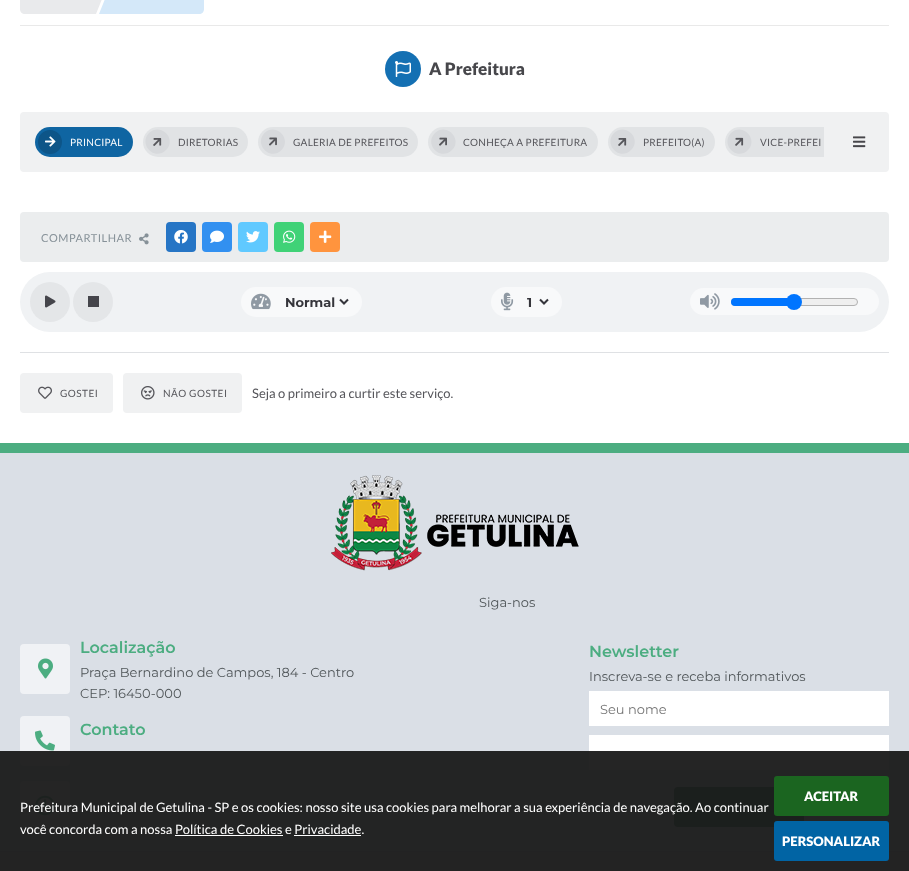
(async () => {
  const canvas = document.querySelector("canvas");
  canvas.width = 909;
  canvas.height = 871;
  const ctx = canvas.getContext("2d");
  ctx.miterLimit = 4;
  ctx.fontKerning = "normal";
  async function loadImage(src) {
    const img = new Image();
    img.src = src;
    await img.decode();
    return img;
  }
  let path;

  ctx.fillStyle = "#ffffff";
  ctx.fillRect(0, 0, 909, 871);
  ctx.fillStyle = "#e9e9e9";
  ctx.fillRect(20, 25, 869, 1);
  ctx.fillStyle = "#e9eaec";
  path = new Path2D("M25-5H96V14H25C22 14 20 12 20 9V0C20-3 22-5 25-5Z");
  ctx.fill(path);
  path = new Path2D("M96-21H110L96 14Z");
  ctx.fill(path);
  ctx.fillStyle = "#d4e8f9";
  path = new Path2D("M113-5H199C202-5 204-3 204 0V9C204 12 202 14 199 14H113Z");
  ctx.fill(path);
  path = new Path2D("M113 14H99L113-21Z");
  ctx.fill(path);
  ctx.fillStyle = "#1470b3";
  ctx.beginPath();
  ctx.arc(403, 69, 18, 0, Math.PI * 2);
  ctx.fill();
  ctx.drawImage(await loadImage("img/1.png"), 395, 61, 16, 16);
  ctx.fillStyle = "#f0f1f2";
  ctx.beginPath();
  ctx.roundRect(20, 112, 869, 60, 4);
  ctx.fill();
  ctx.fillStyle = "#0f65a2";
  ctx.beginPath();
  ctx.roundRect(35, 127, 98, 30, 15);
  ctx.fill();
  ctx.fillStyle = "#0d5588";
  ctx.beginPath();
  ctx.arc(50, 142, 12, 0, Math.PI * 2);
  ctx.fill();
  ctx.drawImage(await loadImage("img/2.png"), 45, 136, 11, 11);
  ctx.fillStyle = "#e1e3e5";
  ctx.beginPath();
  ctx.roundRect(143, 127, 105, 30, 15);
  ctx.fill();
  ctx.fillStyle = "#d7d9dc";
  path = new Path2D("M149 133C160.5 122 177.5 139 166 150C155 161.5 138 144.5 149 133Z");
  ctx.fill(path);
  ctx.drawImage(await loadImage("img/3.png"), 153, 138, 9, 8);
  ctx.fillStyle = "#e1e3e5";
  ctx.beginPath();
  ctx.roundRect(258, 127, 160, 30, 15);
  ctx.fill();
  ctx.fillStyle = "#d7d9dc";
  path = new Path2D("M264.5 133C275.5 122 292.5 139 281.5 150C270.5 161.5 253.5 144.5 264.5 133Z");
  ctx.fill(path);
  ctx.drawImage(await loadImage("img/4.png"), 269, 137, 8, 9);
  ctx.fillStyle = "#e1e3e5";
  ctx.beginPath();
  ctx.roundRect(428, 127, 170, 30, 15);
  ctx.fill();
  ctx.fillStyle = "#d7d9dc";
  path = new Path2D("M435 133C446 122 463 139 452 150C440.5 161.5 423.5 144.5 435 133Z");
  ctx.fill(path);
  ctx.drawImage(await loadImage("img/5.png"), 439, 137, 8, 9);
  ctx.fillStyle = "#e1e3e5";
  ctx.beginPath();
  ctx.roundRect(608, 127, 107, 30, 15);
  ctx.fill();
  ctx.fillStyle = "#d7d9dc";
  path = new Path2D("M614 133C625.5 122 642.5 139 631 150C620 161.5 603 144.5 614 133Z");
  ctx.fill(path);
  ctx.drawImage(await loadImage("img/6.png"), 618, 138, 9, 8);
  ctx.fillStyle = "#e1e3e5";
  ctx.beginPath();
  ctx.roundRect(725, 127, 99, 30, [15, 0, 0, 15]);
  ctx.fill();
  ctx.fillStyle = "#d7d9dc";
  path = new Path2D("M731 133C742 122 759 139 748 150C737 161.5 720 144.5 731 133Z");
  ctx.fill(path);
  ctx.drawImage(await loadImage("img/7.png"), 735, 137, 9, 9);
  ctx.drawImage(await loadImage("img/8.png"), 853, 136, 13, 12);
  ctx.fillStyle = "#ebedee";
  ctx.beginPath();
  ctx.roundRect(20, 212, 869, 50, 4);
  ctx.fill();
  ctx.drawImage(await loadImage("img/9.png"), 139, 233, 10, 12);
  ctx.fillStyle = "#2675c5";
  ctx.beginPath();
  ctx.roundRect(166, 222, 30, 30, 4);
  ctx.fill();
  ctx.drawImage(await loadImage("img/10.png"), 174, 230, 14, 14);
  ctx.fillStyle = "#3290f0";
  ctx.beginPath();
  ctx.roundRect(202, 222, 30, 30, 4);
  ctx.fill();
  ctx.drawImage(await loadImage("img/11.png"), 210, 230, 14, 13);
  ctx.fillStyle = "#60c9ff";
  ctx.beginPath();
  ctx.roundRect(238, 222, 30, 30, 4);
  ctx.fill();
  ctx.drawImage(await loadImage("img/12.png"), 246, 231, 14, 12);
  ctx.fillStyle = "#40d277";
  ctx.beginPath();
  ctx.roundRect(274, 222, 30, 30, 4);
  ctx.fill();
  ctx.drawImage(await loadImage("img/13.png"), 283, 230, 13, 13);
  ctx.fillStyle = "#ff943e";
  ctx.beginPath();
  ctx.roundRect(310, 222, 30, 30, 4);
  ctx.fill();
  ctx.drawImage(await loadImage("img/14.png"), 319, 230, 13, 13);
  ctx.fillStyle = "#f0f2f4";
  ctx.beginPath();
  ctx.roundRect(20, 272, 869, 60, 30);
  ctx.fill();
  ctx.fillStyle = "#e4e6e8";
  ctx.beginPath();
  ctx.arc(50, 302, 20, 0, Math.PI * 2);
  ctx.fill();
  ctx.drawImage(await loadImage("img/15.png"), 45, 295, 11, 13);
  ctx.beginPath();
  ctx.arc(93, 302, 20, 0, Math.PI * 2);
  ctx.fill();
  ctx.fillStyle = "#45454b";
  ctx.fillRect(88, 296, 11, 11);
  ctx.fillStyle = "#f8f9fa";
  ctx.beginPath();
  ctx.roundRect(241, 287, 121, 30, 15);
  ctx.fill();
  ctx.drawImage(await loadImage("img/16.png"), 251, 293, 20, 17);
  path = new Path2D("M340 299.5L344 303.5L348 299.5");
  ctx.strokeStyle = "#35353b";
  ctx.lineWidth = 2;
  ctx.stroke(path);
  ctx.beginPath();
  ctx.roundRect(491, 287, 71, 30, 15);
  ctx.fill();
  ctx.drawImage(await loadImage("img/17.png"), 501, 292, 13, 19);
  path = new Path2D("M540 299.5L544 303.5L548 299.5");
  ctx.stroke(path);
  ctx.beginPath();
  ctx.roundRect(690, 288, 189, 27, 13.5);
  ctx.fill();
  ctx.drawImage(await loadImage("img/18.png"), 700, 293, 20, 17);
  ctx.fillStyle = "#efefef";
  ctx.beginPath();
  ctx.roundRect(731.5, 298.5, 126, 7, 3.5);
  ctx.fill();
  ctx.strokeStyle = "#b2b2b2";
  ctx.lineWidth = 1;
  ctx.stroke();
  ctx.fillStyle = "#0075ff";
  ctx.beginPath();
  ctx.roundRect(731, 298, 63, 8, [4, 0, 0, 4]);
  ctx.fill();
  ctx.beginPath();
  ctx.arc(794, 302, 8, 0, Math.PI * 2);
  ctx.fill();
  ctx.fillStyle = "#dfe1e4";
  ctx.fillRect(20, 352, 869, 1);
  ctx.fillStyle = "#f0f1f2";
  ctx.beginPath();
  ctx.roundRect(20, 373, 93, 40, 4);
  ctx.fill();
  ctx.drawImage(await loadImage("img/19.png"), 38, 386, 14, 13);
  ctx.beginPath();
  ctx.roundRect(123, 373, 119, 40, 4);
  ctx.fill();
  ctx.drawImage(await loadImage("img/20.png"), 141, 386, 14, 14);
  ctx.fillStyle = "#dadfe6";
  ctx.fillRect(0, 453, 909, 398);
  ctx.fillStyle = "#4cad81";
  ctx.fillRect(0, 443, 909, 10);
  ctx.drawImage(await loadImage("img/21.png"), 331, 475, 248, 96);
  ctx.fillStyle = "#f0f2f5";
  ctx.beginPath();
  ctx.roundRect(20, 644, 50, 50, 4);
  ctx.fill();
  ctx.drawImage(await loadImage("img/22.png"), 38, 658, 15, 21);
  ctx.beginPath();
  ctx.roundRect(20, 716, 50, 50, 4);
  ctx.fill();
  ctx.drawImage(await loadImage("img/23.png"), 35, 730, 20, 21);
  ctx.beginPath();
  ctx.roundRect(20, 781, 50, 50, 4);
  ctx.fill();
  ctx.drawImage(await loadImage("img/24.png"), 35, 795, 20, 21);
  ctx.fillStyle = "#ffffff";
  ctx.fillRect(589, 691, 300, 35);
  ctx.fillRect(589, 735, 300, 35);
  ctx.fillStyle = "#388d65";
  ctx.beginPath();
  ctx.roundRect(674, 787, 130, 40, 4);
  ctx.fill();
  for (const [x, y, w, h, color] of [
    [0, 852, 909, 19, "#cfd4db"],
    [0, 851, 909, 1, "#c5c9d0"],
    [0, 751, 909, 120, "rgba(25, 25, 25, 0.95)"],
    [175, 835, 108, 1, "#ffffff"],
    [294, 835, 67, 1, "#ffffff"],
  ]) {
    ctx.fillStyle = color;
    ctx.fillRect(x, y, w, h);
  }
  ctx.fillStyle = "#1b6520";
  ctx.beginPath();
  ctx.roundRect(774, 776, 115, 40, 3);
  ctx.fill();
  ctx.fillStyle = "#0164a4";
  ctx.beginPath();
  ctx.roundRect(774, 821, 115, 40, 3);
  ctx.fill();
  ctx.font = "900 17px Lato";
  ctx.fillStyle = "#47474b";
  ctx.fillText("A Prefeitura", 429, 75);
  ctx.letterSpacing = "0.25px";
  ctx.font = "10px Lato";
  ctx.fillStyle = "#ffffff";
  ctx.fillText("PRINCIPAL", 70, 146);
  ctx.fillStyle = "#56565b";
  for (const [text, x, y] of [
    ["DIRETORIAS", 178, 146],
    ["GALERIA DE PREFEITOS", 293, 146],
    ["CONHEÇA A PREFEITURA", 463, 146],
    ["PREFEITO(A)", 643, 146],
    ["VICE-PREFEI", 760, 146],
  ]) {
    ctx.fillText(text, x, y);
  }
  ctx.letterSpacing = "0.5px";
  ctx.font = "11px Lato";
  ctx.fillStyle = "#869198";
  ctx.fillText("COMPARTILHAR", 41, 242);
  ctx.letterSpacing = "0px";
  ctx.font = "bold 13px Montserrat";
  ctx.fillStyle = "#35353b";
  ctx.fillText("Normal", 285, 307);
  ctx.fillText("1", 527, 307);
  ctx.letterSpacing = "0.5px";
  ctx.font = "10px Lato";
  ctx.fillStyle = "#56565b";
  ctx.fillText("GOSTEI", 60, 397);
  ctx.fillText("NÃO GOSTEI", 163, 397);
  ctx.letterSpacing = "0px";
  ctx.font = "13px Lato";
  ctx.fillText("Seja o primeiro a curtir este serviço.", 252, 398);
  ctx.font = "13px Montserrat";
  ctx.fillStyle = "#505659";
  ctx.fillText("Siga-nos", 479, 607);
  ctx.font = "600 16px Montserrat";
  ctx.fillStyle = "#4cad81";
  ctx.fillText("Localização", 80, 653);
  ctx.font = "13px Montserrat";
  ctx.fillStyle = "#505659";
  ctx.fillText("Praça Bernardino de Campos, 184 - Centro", 80, 677);
  ctx.fillText("CEP: 16450-000", 80, 698);
  ctx.font = "600 16px Montserrat";
  ctx.fillStyle = "#4cad81";
  ctx.fillText("Contato", 80, 735);
  ctx.fillText("Newsletter", 589, 657);
  ctx.font = "13px Montserrat";
  ctx.fillStyle = "#505659";
  ctx.fillText("Inscreva-se e receba informativos", 589, 681);
  ctx.fillStyle = "#757575";
  ctx.fillText("Seu nome", 600, 714);
  ctx.font = "13px Lato";
  ctx.fillStyle = "#ffffff";
  ctx.fillText("Prefeitura Municipal de Getulina - SP e os cookies: nosso site usa cookies para melhorar a sua experiência de navegação. Ao continuar", 20, 812);
  ctx.fillText("você concorda com a nossa Política de Cookies e Privacidade.", 20, 834);
  ctx.font = "900 13px Lato";
  ctx.fillText("ACEITAR", 804, 801);
  ctx.fillText("PERSONALIZAR", 782, 846);
})();
